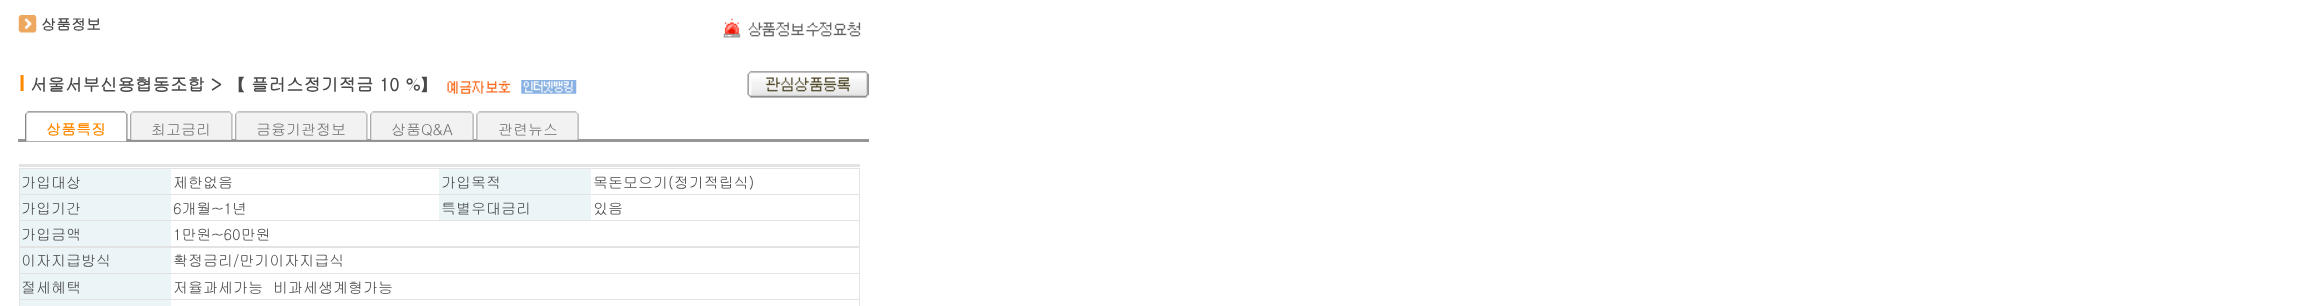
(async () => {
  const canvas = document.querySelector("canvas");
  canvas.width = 2319;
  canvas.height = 306;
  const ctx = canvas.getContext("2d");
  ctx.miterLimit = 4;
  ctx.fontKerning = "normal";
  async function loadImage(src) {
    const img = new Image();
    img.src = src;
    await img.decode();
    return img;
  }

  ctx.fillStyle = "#ffffff";
  ctx.fillRect(0, 0, 2319, 306);
  ctx.drawImage(await loadImage("img/1.png"), 18, 15, 19, 18);
  ctx.drawImage(await loadImage("img/2.png"), 723, 18, 138, 20);
  ctx.drawImage(await loadImage("img/3.png"), 447, 81, 64, 13);
  ctx.drawImage(await loadImage("img/4.png"), 521, 80, 56, 14);
  ctx.drawImage(await loadImage("img/5.png"), 747, 71, 122, 27);
  ctx.fillStyle = "#969696";
  ctx.fillRect(18, 139, 851, 3);
  ctx.drawImage(await loadImage("img/7.png"), 27, 111, 98, 31);
  ctx.drawImage(await loadImage("img/6.png"), 25, 112, 3, 30);
  ctx.drawImage(await loadImage("img/8.png"), 125, 112, 3, 30);
  ctx.drawImage(await loadImage("img/10.png"), 132, 111, 98, 30);
  ctx.drawImage(await loadImage("img/9.png"), 130, 112, 3, 29);
  ctx.drawImage(await loadImage("img/11.png"), 230, 112, 3, 29);
  ctx.drawImage(await loadImage("img/12.png"), 237, 111, 128, 30);
  ctx.drawImage(await loadImage("img/9.png"), 235, 112, 3, 29);
  ctx.drawImage(await loadImage("img/11.png"), 365, 112, 3, 29);
  ctx.drawImage(await loadImage("img/13.png"), 372, 111, 100, 30);
  ctx.drawImage(await loadImage("img/9.png"), 370, 112, 3, 29);
  ctx.drawImage(await loadImage("img/14.png"), 471, 112, 3, 29);
  ctx.drawImage(await loadImage("img/16.png"), 478, 111, 99, 30);
  ctx.drawImage(await loadImage("img/15.png"), 476, 112, 3, 29);
  ctx.drawImage(await loadImage("img/14.png"), 576, 112, 3, 29);
  for (const [x, y, w, h, color] of [
    [19, 164, 841, 3, "#e3e3e3"],
    [19, 168, 841, 138, "#e3e3e3"],
    [20, 169, 571, 25, "#ebf5f7"],
    [171, 169, 268, 25, "#ffffff"],
    [591, 169, 268, 25, "#ffffff"],
    [20, 195, 571, 25, "#ebf5f7"],
    [171, 195, 268, 25, "#ffffff"],
    [591, 195, 268, 25, "#ffffff"],
    [20, 221, 151, 25, "#ebf5f7"],
    [171, 221, 688, 25, "#ffffff"],
    [20, 248, 151, 25, "#ebf5f7"],
    [171, 248, 688, 25, "#ffffff"],
    [20, 274, 151, 25, "#ebf5f7"],
    [171, 274, 688, 25, "#ffffff"],
    [20, 300, 151, 6, "#ebf5f7"],
    [171, 300, 688, 6, "#ffffff"],
  ]) {
    ctx.fillStyle = color;
    ctx.fillRect(x, y, w, h);
  }
  ctx.font = "bold 15px Gulim";
  ctx.fillStyle = "#494949";
  ctx.fillText("상품정보", 41, 30);
  ctx.font = "bold 22px Liberation Sans";
  ctx.fillStyle = "#ff8a00";
  ctx.fillText("l", 19, 91);
  ctx.font = "bold 17.5px Gulim";
  ctx.fillStyle = "#494949";
  ctx.fillText("서울서부신용협동조합 > 【 플러스정기적금 10 %】", 30, 91);
  ctx.font = "bold 15px Gulim";
  ctx.fillStyle = "#ff8a00";
  ctx.fillText("상품특징", 46, 135);
  ctx.font = "15px Gulim";
  ctx.fillStyle = "#6f6f6f";
  for (const [text, x, y] of [
    ["최고금리", 151, 135],
    ["금융기관정보", 256, 135],
    ["상품Q&A", 391, 135],
    ["관련뉴스", 498, 135],
  ]) {
    ctx.fillText(text, x, y);
  }
  ctx.fillStyle = "#494949";
  for (const [text, x, y] of [
    ["가입대상", 21, 188],
    ["제한없음", 173, 188],
    ["가입목적", 441, 188],
    ["목돈모으기(정기적립식)", 593, 188],
    ["가입기간", 21, 214],
    ["6개월~1년", 173, 214],
    ["특별우대금리", 441, 214],
    ["있음", 593, 214],
    ["가입금액", 21, 240],
    ["1만원~60만원", 173, 240],
    ["이자지급방식", 21, 266],
    ["확정금리/만기이자지급식", 173, 266],
    ["절세혜택", 21, 293],
    ["저율과세가능  비과세생계형가능", 173, 293],
  ]) {
    ctx.fillText(text, x, y);
  }
})();
